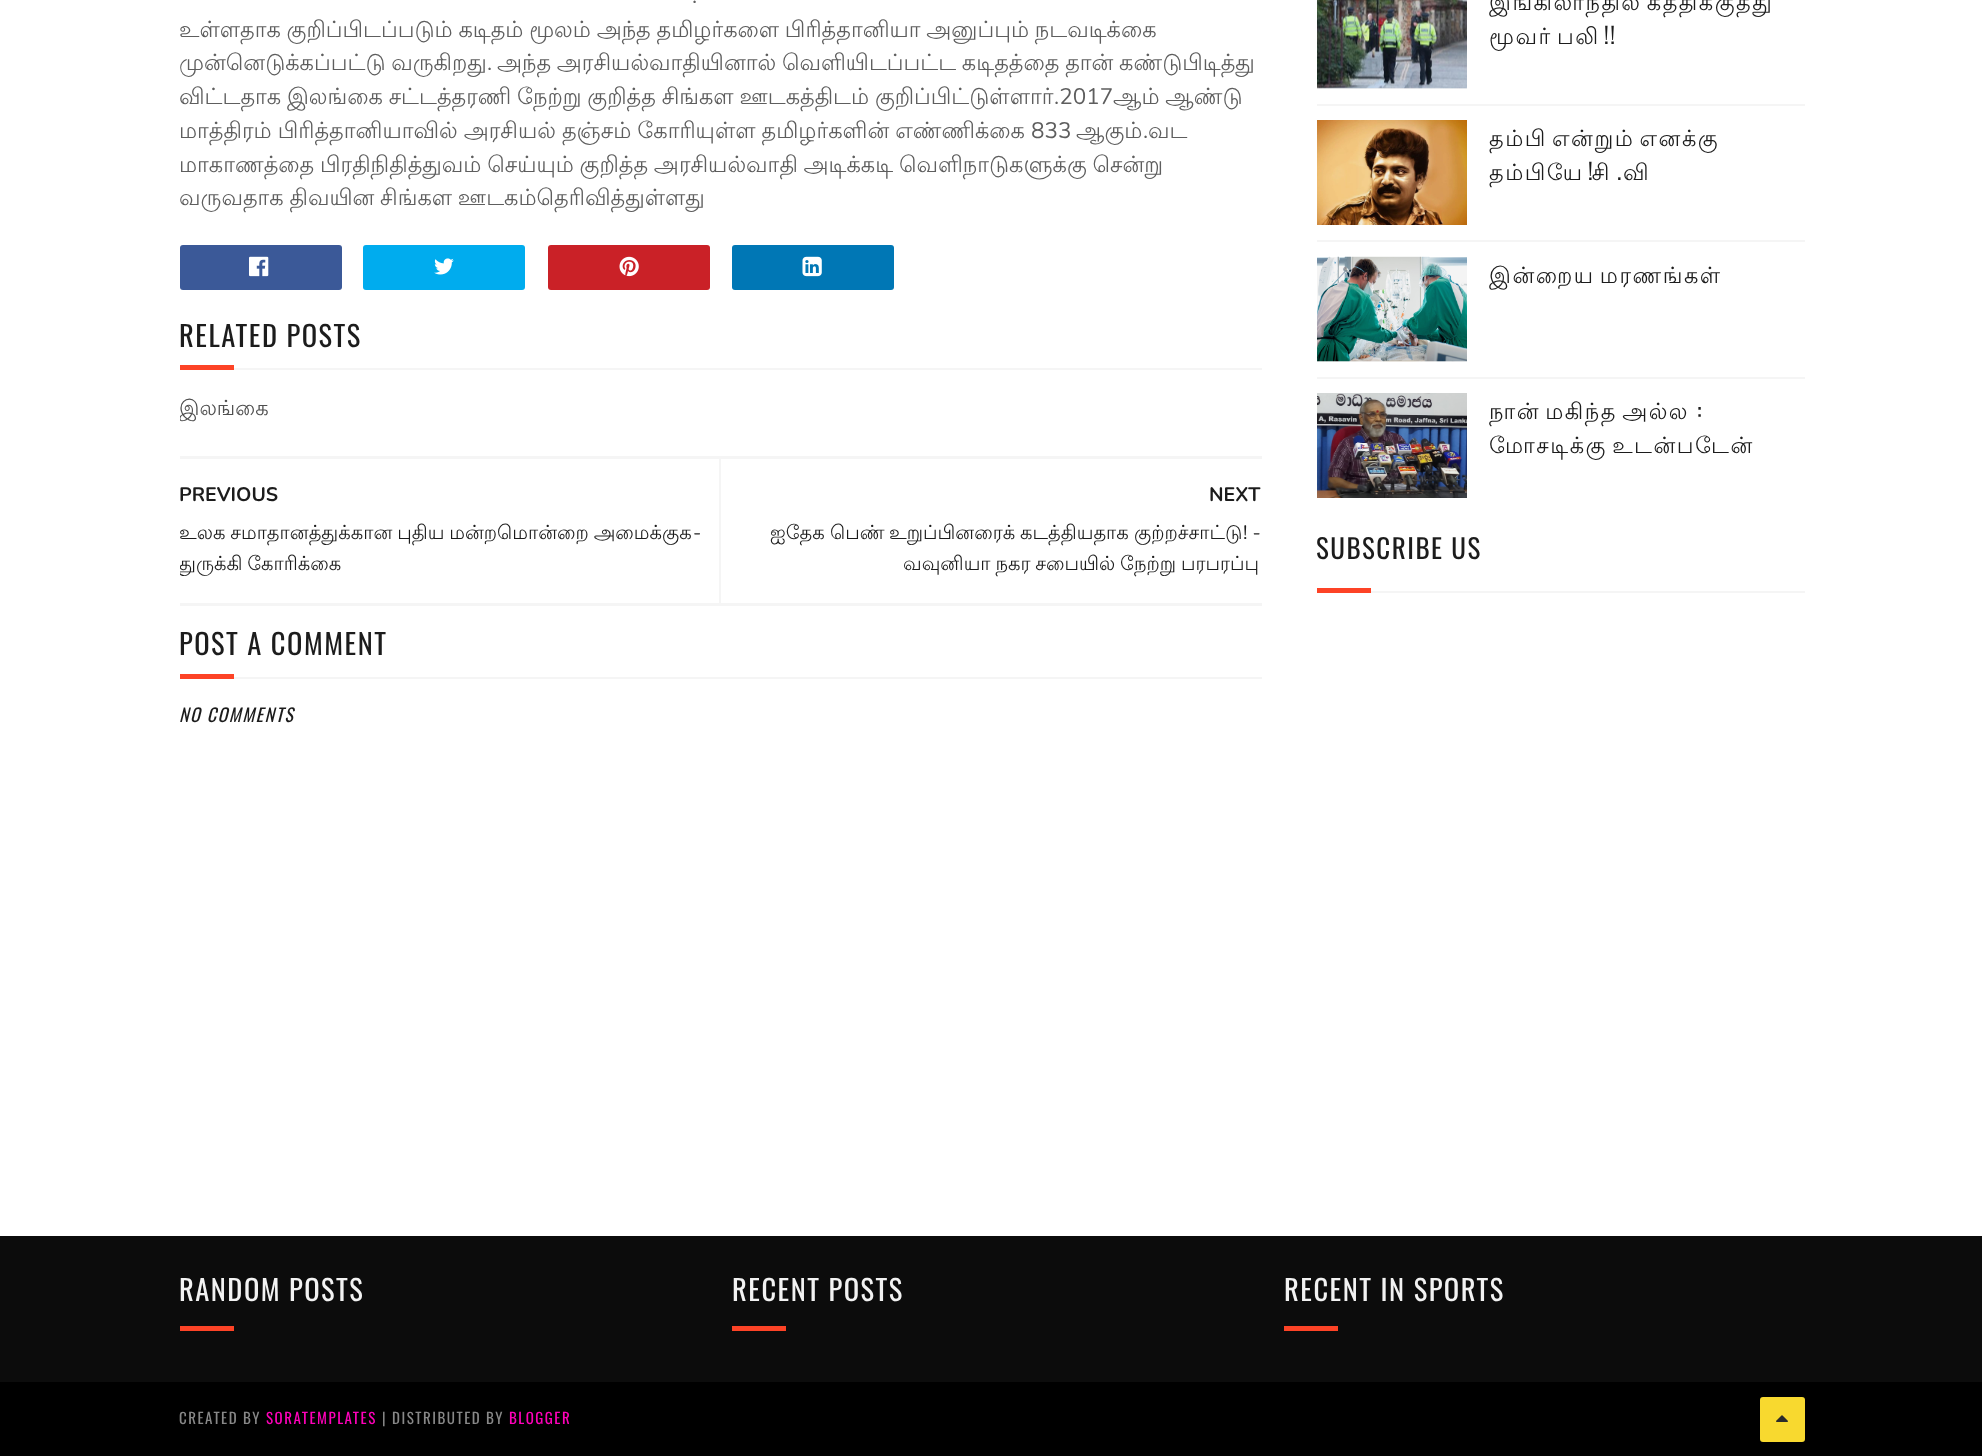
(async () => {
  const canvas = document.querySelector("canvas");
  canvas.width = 1982;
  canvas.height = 1456;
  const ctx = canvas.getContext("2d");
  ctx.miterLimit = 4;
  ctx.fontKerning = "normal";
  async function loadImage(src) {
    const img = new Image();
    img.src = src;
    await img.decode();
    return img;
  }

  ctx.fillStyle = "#ffffff";
  ctx.fillRect(0, 0, 1982, 1456);
  ctx.fillStyle = "#f4f4f4";
  ctx.fillRect(1317, 361, 150, 1);
  ctx.fillRect(1317, 88, 150, 1);
  ctx.fillStyle = "#3b5998";
  ctx.beginPath();
  ctx.roundRect(180, 245, 162, 45, 3);
  ctx.fill();
  ctx.drawImage(await loadImage("img/1.png"), 249, 256, 20, 21);
  ctx.fillStyle = "#00acee";
  ctx.beginPath();
  ctx.roundRect(363, 245, 162, 45, 3);
  ctx.fill();
  ctx.drawImage(await loadImage("img/2.png"), 434, 258, 20, 17);
  ctx.fillStyle = "#ca2127";
  ctx.beginPath();
  ctx.roundRect(548, 245, 162, 45, 3);
  ctx.fill();
  ctx.drawImage(await loadImage("img/3.png"), 619, 256, 20, 21);
  ctx.fillStyle = "#0077b5";
  ctx.beginPath();
  ctx.roundRect(732, 245, 162, 45, 3);
  ctx.fill();
  ctx.drawImage(await loadImage("img/4.png"), 802, 256, 20, 21);
  for (const [x, y, w, h, color] of [
    [234, 368, 1028, 2, "#f5f5f5"],
    [180, 365, 54, 5, "#fd4326"],
    [180, 456, 1082, 3, "#f5f5f5"],
    [180, 603, 1082, 3, "#f5f5f5"],
    [719, 459, 2, 144, "#f5f5f5"],
    [234, 677, 1028, 2, "#f5f5f5"],
    [180, 674, 54, 5, "#fd4326"],
  ]) {
    ctx.fillStyle = color;
    ctx.fillRect(x, y, w, h);
  }
  ctx.drawImage(await loadImage("img/5.png"), 1317, 0, 150, 89);
  ctx.fillStyle = "#f5f5f5";
  ctx.fillRect(1317, 104, 488, 2);
  ctx.drawImage(await loadImage("img/6.png"), 1317, 120, 150, 105);
  ctx.fillRect(1317, 240, 488, 2);
  ctx.drawImage(await loadImage("img/7.png"), 1317, 256, 150, 106);
  ctx.fillRect(1317, 377, 488, 2);
  ctx.drawImage(await loadImage("img/8.png"), 1317, 393, 150, 105);
  for (const [x, y, w, h, color] of [
    [1371, 591, 434, 2, "#f5f5f5"],
    [1317, 588, 54, 5, "#fd4326"],
    [0, 1236, 1982, 146, "#0c0c0c"],
    [180, 1326, 54, 5, "#fd4326"],
    [732, 1326, 54, 5, "#fd4326"],
    [1284, 1326, 54, 5, "#fd4326"],
    [0, 1382, 1982, 74, "#000000"],
  ]) {
    ctx.fillStyle = color;
    ctx.fillRect(x, y, w, h);
  }
  ctx.fillStyle = "#f8d92f";
  ctx.beginPath();
  ctx.roundRect(1760, 1397, 45, 45, 3);
  ctx.fill();
  ctx.drawImage(await loadImage("img/9.png"), 1776, 1415, 12, 7);
  ctx.font = "22.5px Nunito";
  ctx.fillStyle = "#5e5e5e";
  ctx.fillText(".", 692, 3);
  ctx.wordSpacing = "-1px";
  ctx.font = "22.5px Lohit Tamil";
  ctx.fillText("உள்ளதாக குறிப்பிடப்படும் கடிதம் மூலம் அந்த தமிழர்களை பிரித்தானியா அனுப்பும் நடவடிக்கை", 179, 37);
  ctx.fillText("முன்னெடுக்கப்பட்டு வருகிறது", 179, 70);
  ctx.wordSpacing = "0px";
  ctx.font = "22.5px Nunito";
  ctx.fillText(".", 487, 70);
  ctx.wordSpacing = "-1px";
  ctx.font = "22.5px Lohit Tamil";
  ctx.fillText("அந்த அரசியல்வாதியினால் வெளியிடப்பட்ட கடிதத்தை தான் கண்டுபிடித்து", 497, 70);
  ctx.fillText("விட்டதாக இலங்கை சட்டத்தரணி நேற்று குறித்த சிங்கள ஊடகத்திடம் குறிப்பிட்டுள்ளார்", 179, 104);
  ctx.wordSpacing = "0px";
  ctx.font = "22.5px Nunito";
  ctx.fillText(".2017", 1054, 104);
  ctx.wordSpacing = "-1px";
  ctx.font = "22.5px Lohit Tamil";
  ctx.fillText("ஆம் ஆண்டு", 1113, 104);
  ctx.wordSpacing = "-0.75px";
  ctx.fillText("மாத்திரம் பிரித்தானியாவில் அரசியல் தஞ்சம் கோரியுள்ள தமிழர்களின் எண்ணிக்கை", 179, 138);
  ctx.wordSpacing = "0px";
  ctx.font = "22.5px Nunito";
  ctx.fillText("833", 1031, 138);
  ctx.font = "22.5px Lohit Tamil";
  ctx.fillText("ஆகும்", 1076, 138);
  ctx.font = "22.5px Nunito";
  ctx.fillText(".", 1143, 138);
  ctx.font = "22.5px Lohit Tamil";
  ctx.fillText("வட", 1148, 138);
  ctx.wordSpacing = "-1px";
  ctx.fillText("மாகாணத்தை பிரதிநிதித்துவம் செய்யும் குறித்த அரசியல்வாதி அடிக்கடி வெளிநாடுகளுக்கு சென்று", 179, 172);
  ctx.fillText("வருவதாக திவயின சிங்கள ஊடகம்தெரிவித்துள்ளது", 179, 205);
  ctx.letterSpacing = "1.5px";
  ctx.wordSpacing = "0px";
  ctx.font = "28.5px Oswald";
  ctx.fillStyle = "#1c1c1c";
  ctx.fillText("RELATED POSTS", 179, 347);
  ctx.save();
  ctx.beginPath();
  ctx.rect(180, 0, 1082, 701);
  ctx.clip();
  ctx.letterSpacing = "0px";
  ctx.font = "21px Lohit Tamil";
  ctx.fillStyle = "#4f4f4f";
  ctx.fillText("இலங்கை", 179, 415);
  ctx.restore();
  ctx.letterSpacing = "0px";
  ctx.font = "bold 19.5px Nunito";
  ctx.fillText("PREVIOUS", 179, 501);
  ctx.wordSpacing = "-1px";
  ctx.font = "19.5px Lohit Tamil";
  ctx.fillText("உலக சமாதானத்துக்கான புதிய மன்றமொன்றை அமைக்குக", 179, 539);
  ctx.wordSpacing = "0px";
  ctx.font = "19.5px Nunito";
  ctx.fillText("-", 693, 539);
  ctx.save();
  ctx.beginPath();
  ctx.rect(180, 459, 1082, 144);
  ctx.clip();
  ctx.wordSpacing = "-1px";
  ctx.font = "19.5px Lohit Tamil";
  ctx.fillText("துருக்கி கோரிக்கை", 179, 570);
  ctx.restore();
  ctx.font = "bold 19.5px Nunito";
  ctx.fillText("NEXT", 1209, 501);
  ctx.font = "19.5px Lohit Tamil";
  for (const [text, x, y] of [
    ["ஐதேக", 770, 539],
    ["பெண்", 830, 539],
    ["உறுப்பினரைக்", 889, 539],
    ["கடத்தியதாக", 1020, 539],
    ["குற்றச்சாட்டு", 1134, 539],
  ]) {
    ctx.fillText(text, x, y);
  }
  ctx.font = "19.5px Nunito";
  ctx.fillText("! -", 1243, 539);
  ctx.wordSpacing = "-1px";
  ctx.font = "19.5px Lohit Tamil";
  ctx.fillText("வவுனியா நகர சபையில் நேற்று பரபரப்பு", 903, 570);
  ctx.letterSpacing = "1.5px";
  ctx.wordSpacing = "0px";
  ctx.font = "28.5px Oswald";
  ctx.fillText("POST A COMMENT", 179, 655);
  ctx.font = "italic 18px Oswald";
  ctx.fillText("NO COMMENTS", 179, 722);
  ctx.wordSpacing = "-3px";
  ctx.font = "22.5px Lohit Tamil";
  ctx.fillText("இங்கிலாந்தில் கத்திக்குத்து", 1489, 10);
  ctx.fillText("மூவர் பலி", 1489, 44);
  ctx.wordSpacing = "0px";
  ctx.font = "22.5px Oswald";
  ctx.fillText("!!", 1604, 44);
  ctx.wordSpacing = "-3px";
  ctx.font = "22.5px Lohit Tamil";
  ctx.fillText("தம்பி என்றும் எனக்கு", 1489, 146);
  ctx.wordSpacing = "0px";
  ctx.fillText("தம்பியே சி", 1489, 180);
  ctx.font = "22.5px Oswald";
  ctx.fillText("!", 1588, 180);
  ctx.fillText(".", 1617, 180);
  ctx.font = "22.5px Lohit Tamil";
  ctx.fillText("வி", 1623, 180);
  ctx.wordSpacing = "-3px";
  ctx.fillText("இன்றைய மரணங்கள்", 1489, 283);
  ctx.fillText("நான் மகிந்த அல்ல", 1489, 419);
  ctx.wordSpacing = "0px";
  ctx.font = "22.5px Oswald";
  ctx.fillText(":", 1697, 419);
  ctx.wordSpacing = "-3px";
  ctx.font = "22.5px Lohit Tamil";
  ctx.fillText("மோசடிக்கு உடன்படேன்", 1489, 453);
  ctx.wordSpacing = "0px";
  ctx.font = "27px Oswald";
  ctx.fillText("SUBSCRIBE US", 1316, 559);
  ctx.font = "28.5px Oswald";
  ctx.fillStyle = "#f2f2f2";
  for (const [text, x, y] of [
    ["RANDOM POSTS", 179, 1301],
    ["RECENT POSTS", 732, 1301],
    ["RECENT IN SPORTS", 1284, 1301],
  ]) {
    ctx.fillText(text, x, y);
  }
  ctx.font = "15px Oswald";
  ctx.fillStyle = "#888888";
  ctx.fillText("CREATED BY", 179, 1424);
  ctx.fillStyle = "#ff00ba";
  ctx.fillText("SORATEMPLATES", 266, 1424);
  ctx.fillStyle = "#888888";
  ctx.fillText("| DISTRIBUTED BY", 382, 1424);
  ctx.fillStyle = "#ff00ba";
  ctx.fillText("BLOGGER", 509, 1424);
})();
